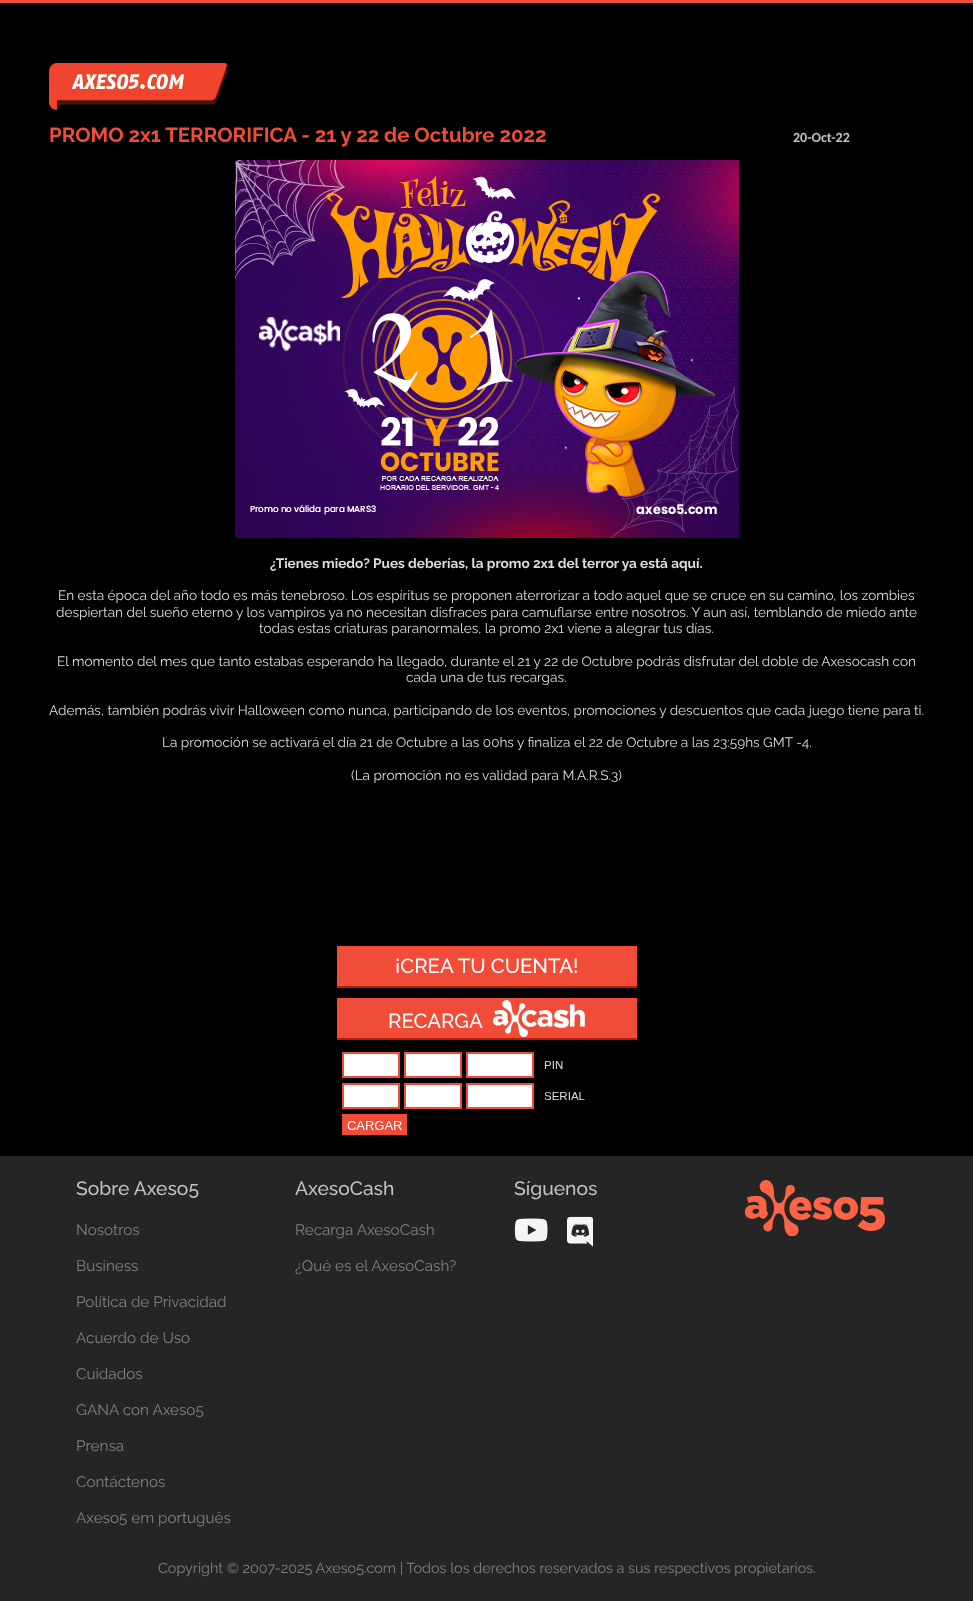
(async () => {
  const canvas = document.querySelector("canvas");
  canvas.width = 973;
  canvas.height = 1601;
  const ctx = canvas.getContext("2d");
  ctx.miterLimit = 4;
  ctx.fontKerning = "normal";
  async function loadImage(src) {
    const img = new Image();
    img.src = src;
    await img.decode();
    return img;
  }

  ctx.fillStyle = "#000000";
  ctx.fillRect(0, 0, 973, 1601);
  ctx.fillStyle = "#f04c38";
  ctx.fillRect(0, 0, 973, 3);
  ctx.drawImage(await loadImage("img/1.png"), 49, 63, 179, 47);
  ctx.drawImage(await loadImage("img/2.png"), 235, 160, 504, 378);
  for (const [x, y, w, h, color] of [
    [337, 946, 300, 40, "#f04c38"],
    [337, 986, 300, 2, "#bd1905"],
    [337, 998, 300, 40, "#f04c38"],
    [337, 1038, 300, 2, "#bd1905"],
  ]) {
    ctx.fillStyle = color;
    ctx.fillRect(x, y, w, h);
  }
  ctx.drawImage(await loadImage("img/3.png"), 493, 1000, 92, 37);
  ctx.drawImage(await loadImage("img/4.png"), 342, 1052, 243, 83);
  ctx.fillStyle = "#252525";
  ctx.fillRect(0, 1156, 973, 445);
  ctx.drawImage(await loadImage("img/5.png"), 514, 1218, 34, 24);
  ctx.drawImage(await loadImage("img/6.png"), 567, 1216, 26, 31);
  ctx.drawImage(await loadImage("img/7.png"), 745, 1180, 140, 56);
  ctx.font = "bold 20.4px Raleway";
  ctx.fillStyle = "#f04c38";
  ctx.fillText("PROMO 2x1 TERRORIFICA - 21 y 22 de Octubre 2022", 49, 142);
  ctx.font = "bold 14px Carlito";
  ctx.fillStyle = "#c2c2c2";
  ctx.fillText("20-Oct-22", 793, 142);
  ctx.font = "bold 13.6px Raleway";
  ctx.fillStyle = "#dddddd";
  ctx.fillText("¿Tienes miedo? Pues deberías, la promo 2x1 del terror ya está aquí.", 270, 568);
  ctx.font = "13.6px Raleway";
  for (const [text, x, y] of [
    ["En esta época del año todo es más tenebroso. Los espíritus se proponen aterrorizar a todo aquel que se cruce en su camino, los zombies", 58, 600],
    ["despiertan del sueño eterno y los vampiros ya no necesitan disfraces para camuflarse entre nosotros. Y aun así, temblando de miedo ante", 56, 617],
    ["todas estas criaturas paranormales, la promo 2x1 viene a alegrar tus días.", 259, 633],
    ["El momento del mes que tanto estabas esperando ha llegado, durante el 21 y 22 de Octubre podrás disfrutar del doble de Axesocash con", 57, 666],
    ["cada una de tus recargas.", 406, 682],
    ["Además, también podrás vivir Halloween como nunca, participando de los eventos, promociones y descuentos que cada juego tiene para ti.", 49, 715],
    ["La promoción se activará el día 21 de Octubre a las 00hs y finaliza el 22 de Octubre a las 23:59hs GMT -4.", 162, 747],
    ["(La promoción no es validad para M.A.R.S.3)", 351, 780],
  ]) {
    ctx.fillText(text, x, y);
  }
  ctx.font = "500 20.4px Raleway";
  ctx.fillStyle = "#ffffff";
  ctx.fillText("¡CREA TU CUENTA!", 395, 973);
  ctx.fillText("RECARGA", 388, 1028);
  ctx.font = "500 19.25px Raleway";
  ctx.fillStyle = "#c2c2c2";
  ctx.fillText("Sobre Axeso5", 76, 1195);
  ctx.font = "15.25px Raleway";
  ctx.fillStyle = "#808080";
  for (const [text, x, y] of [
    ["Nosotros", 76, 1235],
    ["Business", 76, 1271],
    ["Política de Privacidad", 76, 1307],
    ["Acuerdo de Uso", 76, 1343],
    ["Cuidados", 76, 1379],
    ["GANA con Axeso5", 76, 1415],
    ["Prensa", 76, 1451],
    ["Contáctenos", 76, 1487],
    ["Axeso5 em português", 76, 1523],
  ]) {
    ctx.fillText(text, x, y);
  }
  ctx.font = "500 19.25px Raleway";
  ctx.fillStyle = "#c2c2c2";
  ctx.fillText("AxesoCash", 295, 1195);
  ctx.font = "15.25px Raleway";
  ctx.fillStyle = "#808080";
  ctx.fillText("Recarga AxesoCash", 295, 1235);
  ctx.fillText("¿Qué es el AxesoCash?", 295, 1271);
  ctx.font = "500 19.25px Raleway";
  ctx.fillStyle = "#c2c2c2";
  ctx.fillText("Síguenos", 514, 1195);
  ctx.font = "14.4px Raleway";
  ctx.fillStyle = "#808080";
  ctx.fillText("Copyright © 2007-2025 Axeso5.com | Todos los derechos reservados a sus respectivos propietarios.", 158, 1573);
})();
